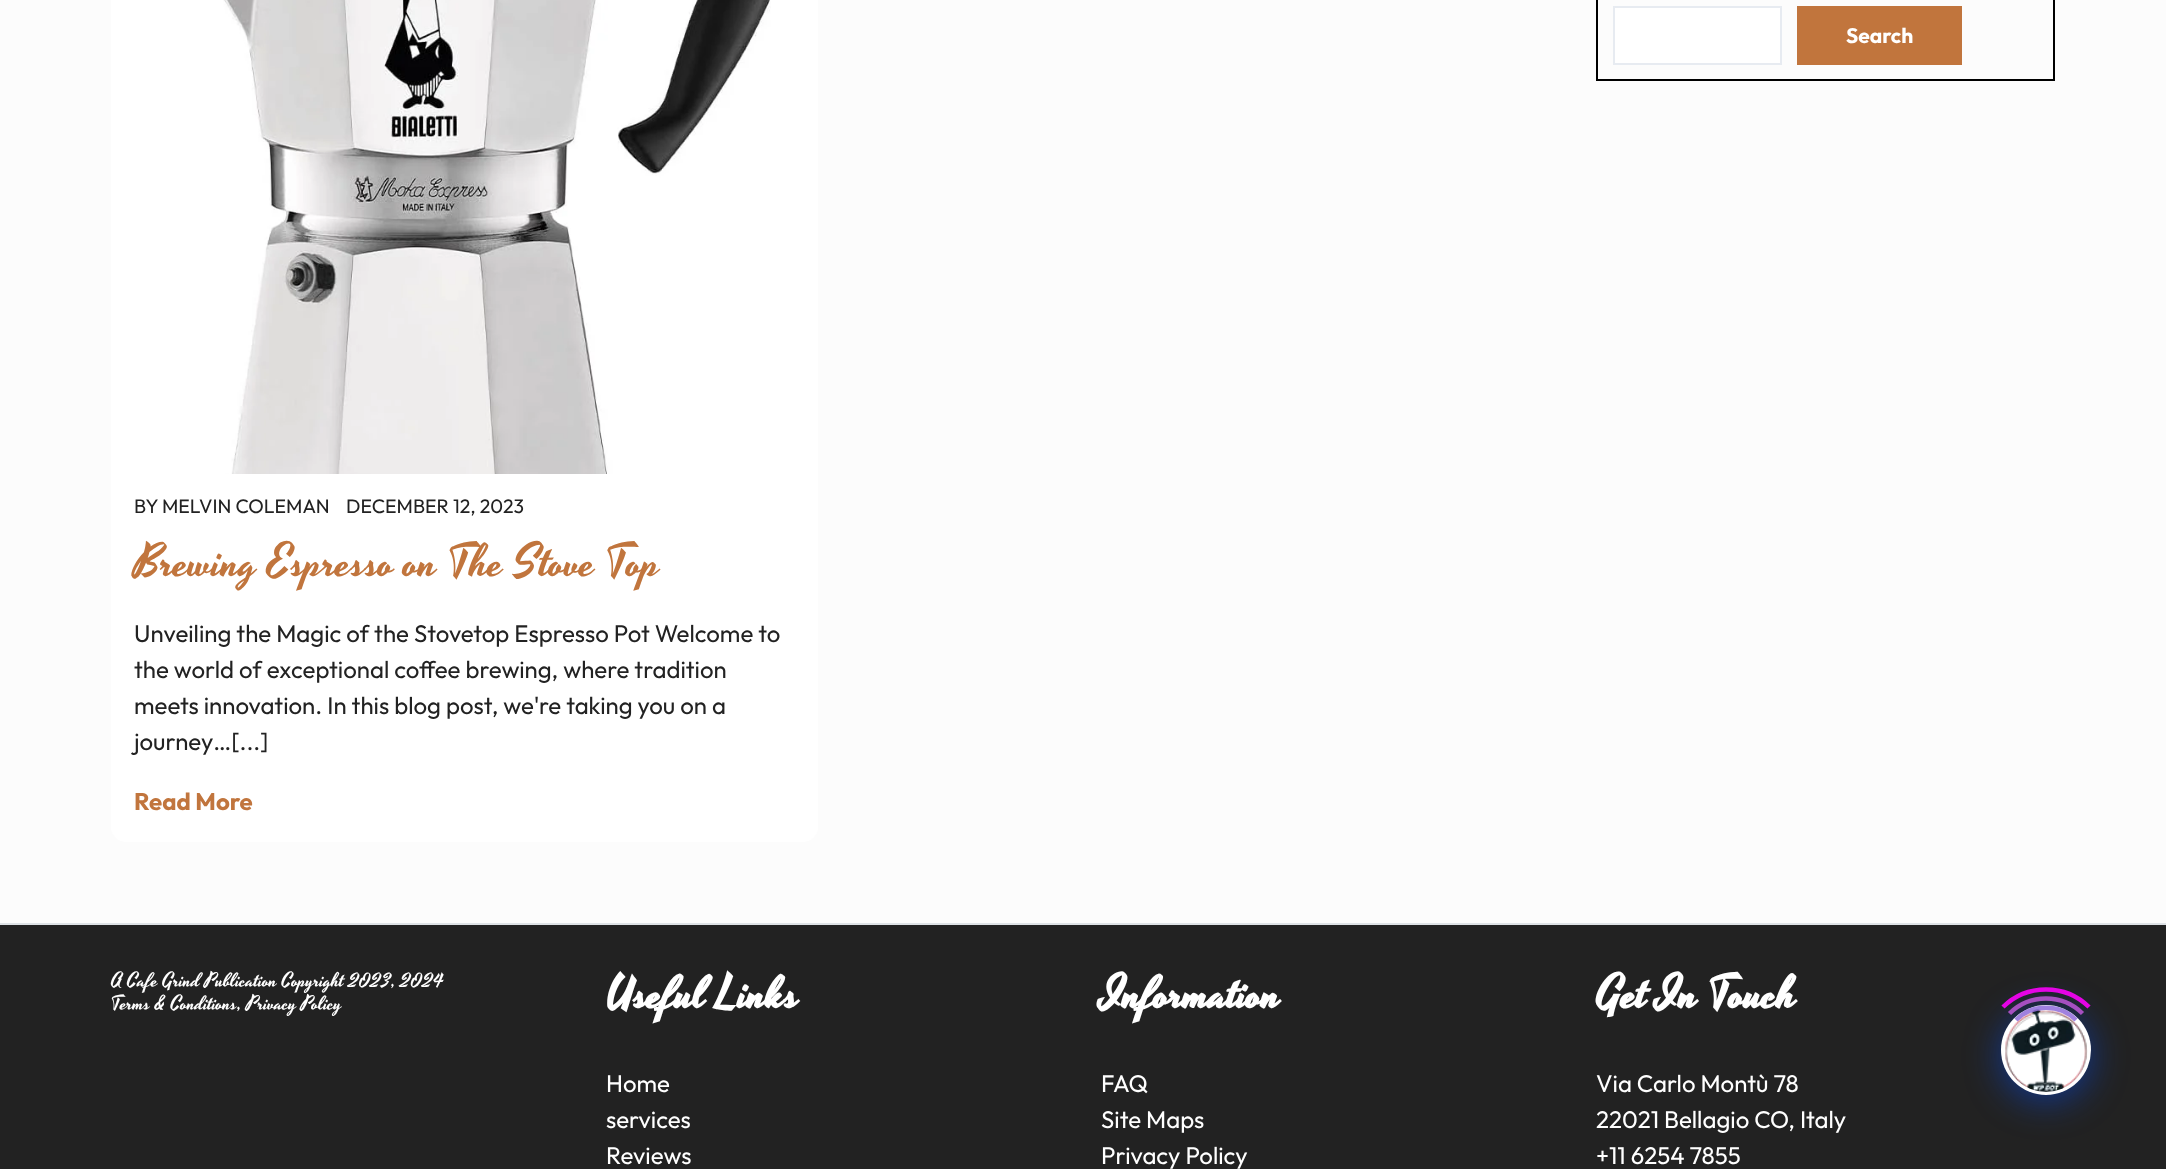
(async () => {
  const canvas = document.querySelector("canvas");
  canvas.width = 2166;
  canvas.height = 1169;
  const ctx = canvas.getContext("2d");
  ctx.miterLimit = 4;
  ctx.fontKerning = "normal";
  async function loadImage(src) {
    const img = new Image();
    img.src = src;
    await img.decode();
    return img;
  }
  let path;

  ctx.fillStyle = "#fcfcfc";
  ctx.fillRect(0, 0, 2166, 1169);
  ctx.strokeStyle = "#000000";
  ctx.lineWidth = 2;
  ctx.strokeRect(1597, -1, 457, 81);
  ctx.fillStyle = "#ffffff";
  ctx.beginPath();
  ctx.rect(1614, 7, 167, 57);
  ctx.fill();
  ctx.strokeStyle = "#e7ebf1";
  ctx.stroke();
  ctx.fillStyle = "#c1753d";
  ctx.fillRect(1797, 6, 165, 59);
  ctx.fillStyle = "#ffffff";
  ctx.beginPath();
  ctx.roundRect(111, -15, 707, 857, 15);
  ctx.fill();
  ctx.drawImage(await loadImage("img/1.png"), 223, 0, 548, 474);
  ctx.fillStyle = "#222222";
  ctx.fillRect(0, 925, 2166, 244);
  ctx.fillStyle = "#dee2e6";
  ctx.fillRect(0, 923, 2166, 2);
  ctx.fillStyle = "rgba(0, 77, 255, 0.5)";
  ctx.filter = "blur(18px)";
  ctx.beginPath();
  ctx.roundRect(2001, 1011, 90, 90, 45);
  ctx.fill();
  ctx.filter = "none";
  ctx.fillStyle = "#ffffff";
  ctx.beginPath();
  ctx.arc(2046, 1050, 45, 0, Math.PI * 2);
  ctx.fill();
  ctx.drawImage(await loadImage("img/2.png"), 2005, 1008, 83, 84);
  path = new Path2D("M2016 1020C2032 1003.5 2060 1003.5 2076 1020");
  ctx.strokeStyle = "rgba(147, 112, 219, 0.88)";
  ctx.lineWidth = 4.5;
  ctx.stroke(path);
  path = new Path2D("M2009.5 1013.5C2029.5 993.5 2062.5 993.5 2082.5 1013.5");
  ctx.strokeStyle = "rgba(186, 85, 211, 0.88)";
  ctx.stroke(path);
  path = new Path2D("M2003 1007C2026.5 983.5 2065.5 983.5 2089 1007");
  ctx.strokeStyle = "rgba(255, 0, 255, 0.88)";
  ctx.stroke(path);
  ctx.font = "bold 21px Outfit";
  ctx.fillText("Search", 1846, 43);
  ctx.font = "19.5px Outfit";
  ctx.fillStyle = "#222222";
  ctx.fillText("BY MELVIN COLEMAN", 134, 513);
  ctx.fillText("DECEMBER 12, 2023", 346, 513);
  ctx.font = "45px Yesteryear";
  ctx.fillStyle = "#c1753d";
  ctx.fillText("Brewing Espresso on The Stove Top", 134, 575);
  ctx.font = "24px Outfit";
  ctx.fillStyle = "#222222";
  for (const [text, x, y] of [
    ["Unveiling the Magic of the Stovetop Espresso Pot Welcome to", 134, 642],
    ["the world of exceptional coffee brewing, where tradition", 134, 678],
    ["meets innovation. In this blog post, we're taking you on a", 134, 714],
    ["journey…[...]", 134, 750],
  ]) {
    ctx.fillText(text, x, y);
  }
  ctx.font = "bold 24px Outfit";
  ctx.fillStyle = "#c1753d";
  ctx.fillText("Read More", 134, 810);
  ctx.font = "19.5px Yesteryear";
  ctx.fillStyle = "#ffffff";
  ctx.fillText("A Cafe Grind Publication Copyright 2023, 2024", 111, 986);
  ctx.fillText("Terms & Conditions, Privacy Policy", 111, 1009);
  ctx.font = "bold 45px Yesteryear";
  ctx.fillText("Useful Links", 606, 1007);
  ctx.font = "24px Outfit";
  for (const [text, x, y] of [
    ["Home", 606, 1092],
    ["services", 606, 1128],
    ["Reviews", 606, 1164],
  ]) {
    ctx.fillText(text, x, y);
  }
  ctx.font = "bold 45px Yesteryear";
  ctx.fillText("Information", 1101, 1007);
  ctx.font = "24px Outfit";
  for (const [text, x, y] of [
    ["FAQ", 1101, 1092],
    ["Site Maps", 1101, 1128],
    ["Privacy Policy", 1101, 1164],
  ]) {
    ctx.fillText(text, x, y);
  }
  ctx.font = "bold 45px Yesteryear";
  ctx.fillText("Get In Touch", 1596, 1007);
  ctx.font = "24px Outfit";
  for (const [text, x, y] of [
    ["Via Carlo Montù 78", 1596, 1092],
    ["22021 Bellagio CO, Italy", 1596, 1128],
    ["+11 6254 7855", 1596, 1164],
  ]) {
    ctx.fillText(text, x, y);
  }
})();
